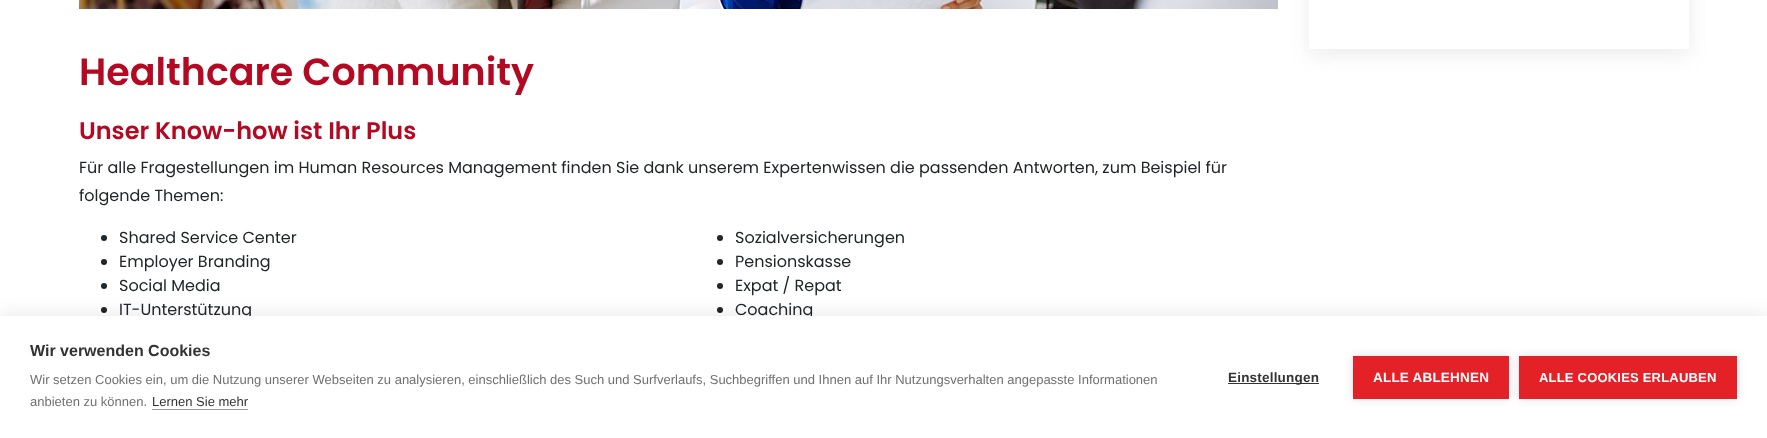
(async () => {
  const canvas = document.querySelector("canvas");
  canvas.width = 1767;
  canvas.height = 438;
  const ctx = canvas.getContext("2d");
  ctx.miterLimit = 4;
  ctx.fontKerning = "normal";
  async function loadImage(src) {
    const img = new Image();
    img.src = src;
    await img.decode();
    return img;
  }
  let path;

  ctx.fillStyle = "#ffffff";
  ctx.fillRect(0, 0, 1767, 438);
  ctx.save();
  path = new Path2D("M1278 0H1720V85H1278ZM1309-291H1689V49H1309Z");
  ctx.clip(path, "evenodd");
  ctx.fillStyle = "#ebebeb";
  ctx.filter = "blur(10px)";
  ctx.beginPath();
  ctx.rect(1309, -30, 380, 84);
  ctx.fill();
  ctx.filter = "none";
  ctx.restore();
  ctx.drawImage(await loadImage("img/1.png"), 79, 0, 1199, 9);
  ctx.fillStyle = "#212529";
  ctx.beginPath();
  ctx.arc(104, 238, 3, 0, Math.PI * 2);
  ctx.fill();
  ctx.beginPath();
  ctx.arc(104, 262, 3, 0, Math.PI * 2);
  ctx.fill();
  ctx.beginPath();
  ctx.arc(104, 286, 3, 0, Math.PI * 2);
  ctx.fill();
  ctx.beginPath();
  ctx.arc(104, 310, 3, 0, Math.PI * 2);
  ctx.fill();
  ctx.beginPath();
  ctx.arc(720, 238, 3, 0, Math.PI * 2);
  ctx.fill();
  ctx.beginPath();
  ctx.arc(720, 262, 3, 0, Math.PI * 2);
  ctx.fill();
  ctx.beginPath();
  ctx.arc(720, 286, 3, 0, Math.PI * 2);
  ctx.fill();
  ctx.beginPath();
  ctx.arc(720, 310, 3, 0, Math.PI * 2);
  ctx.fill();
  ctx.fillStyle = "rgba(0, 0, 0, 0.1)";
  ctx.filter = "blur(10px)";
  ctx.beginPath();
  ctx.rect(0, 316, 1767, 122);
  ctx.fill();
  ctx.filter = "none";
  ctx.font = "600 38px Poppins";
  ctx.fillStyle = "#b40923";
  ctx.fillText("Healthcare Community", 79, 85);
  ctx.font = "600 24px Poppins";
  ctx.fillText("Unser Know-how ist Ihr Plus", 79, 139);
  ctx.font = "16px Poppins";
  ctx.fillStyle = "#212529";
  for (const [text, x, y] of [
    ["Für alle Fragestellungen im Human Resources Management finden Sie dank unserem Expertenwissen die passenden Antworten, zum Beispiel für", 79, 173],
    ["folgende Themen:", 79, 201],
    ["Shared Service Center", 119, 243],
    ["Employer Branding", 119, 267],
    ["Social Media", 119, 291],
    ["IT-Unterstützung", 119, 315],
    ["Sozialversicherungen", 735, 243],
    ["Pensionskasse", 735, 267],
    ["Expat / Repat", 735, 291],
    ["Coaching", 735, 315],
  ]) {
    ctx.fillText(text, x, y);
  }
  ctx.fillStyle = "#ffffff";
  ctx.fillRect(0, 316, 1767, 122);
  ctx.font = "bold 16px Liberation Sans";
  ctx.fillStyle = "#333333";
  ctx.fillText("Wir verwenden Cookies", 30, 356);
  ctx.font = "13px Liberation Sans";
  ctx.fillStyle = "#707070";
  ctx.fillText("Wir setzen Cookies ein, um die Nutzung unserer Webseiten zu analysieren, einschließlich des Such und Surfverlaufs, Suchbegriffen und Ihnen auf Ihr Nutzungsverhalten angepasste Informationen", 30, 384);
  ctx.fillText("anbieten zu können.", 30, 406);
  ctx.fillStyle = "#333333";
  ctx.fillText("Lernen Sie mehr", 152, 406);
  ctx.fillStyle = "#999999";
  ctx.fillRect(152, 409, 96, 1);
  ctx.fillStyle = "#333333";
  ctx.fillRect(1228, 383, 91, 1);
  ctx.letterSpacing = "0.2px";
  ctx.font = "bold 13.5px Liberation Sans";
  ctx.fillText("Einstellungen", 1228, 382);
  ctx.fillStyle = "rgba(0, 0, 0, 0.12)";
  ctx.filter = "blur(5px)";
  ctx.beginPath();
  ctx.rect(1353, 356, 156, 43);
  ctx.fill();
  ctx.filter = "none";
  ctx.fillStyle = "#e42127";
  ctx.fillRect(1353, 356, 156, 43);
  ctx.fillStyle = "#ffffff";
  ctx.fillText("ALLE ABLEHNEN", 1373, 382);
  ctx.fillStyle = "rgba(0, 0, 0, 0.12)";
  ctx.filter = "blur(5px)";
  ctx.beginPath();
  ctx.rect(1519, 356, 218, 43);
  ctx.fill();
  ctx.filter = "none";
  ctx.fillStyle = "#e42127";
  ctx.fillRect(1519, 356, 218, 43);
  ctx.font = "bold 13px Liberation Sans";
  ctx.fillStyle = "#ffffff";
  ctx.fillText("ALLE COOKIES ERLAUBEN", 1539, 382);
})();
